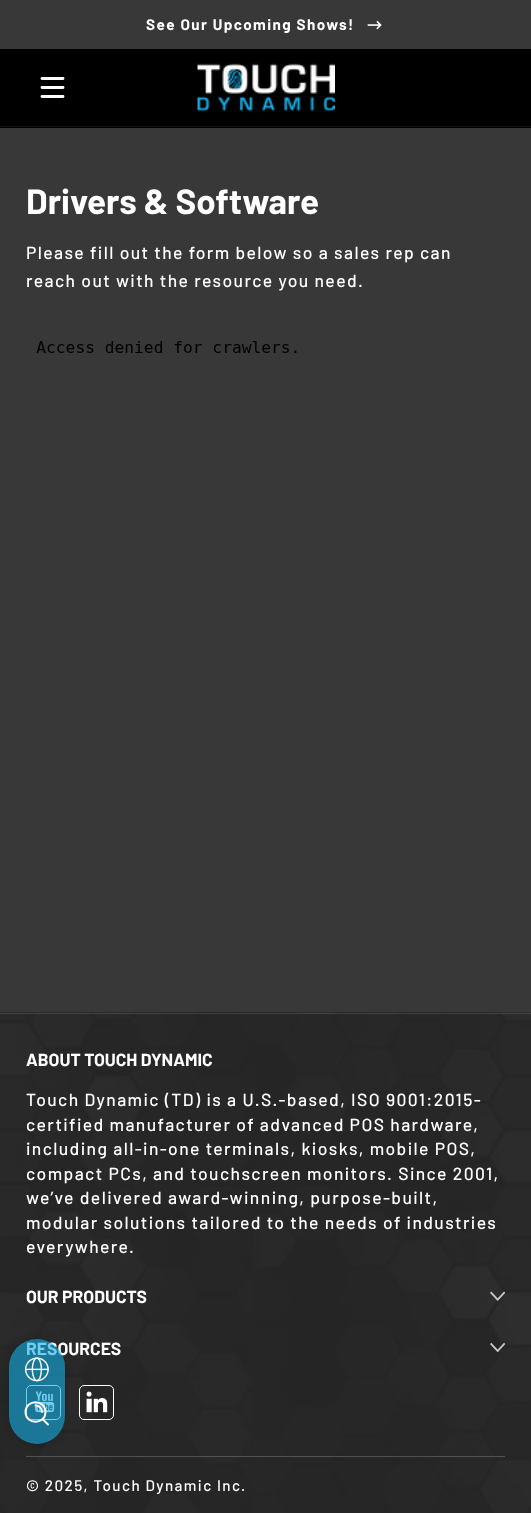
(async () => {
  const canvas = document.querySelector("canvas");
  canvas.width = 531;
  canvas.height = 1513;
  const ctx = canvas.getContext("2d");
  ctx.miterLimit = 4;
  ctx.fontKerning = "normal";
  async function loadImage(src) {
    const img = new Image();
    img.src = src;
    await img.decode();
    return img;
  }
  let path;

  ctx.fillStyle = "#383838";
  ctx.fillRect(0, 0, 531, 1513);
  ctx.drawImage(await loadImage("img/1.png"), 367, 20, 15, 10);
  ctx.fillStyle = "#000000";
  ctx.fillRect(0, 49, 531, 79);
  path = new Path2D("M42 78.5H63M42 87.5H63M42 96.5H63");
  ctx.strokeStyle = "#ffffff";
  ctx.lineWidth = 2.9;
  ctx.lineCap = "round";
  ctx.stroke(path);
  ctx.drawImage(await loadImage("img/2.png"), 197, 63, 138, 49);
  ctx.fillStyle = "#0d0d0d";
  ctx.fillRect(0, 126, 531, 1);
  ctx.drawImage(await loadImage("img/3.png"), 36, 341, 261, 12);
  ctx.fillStyle = "#606060";
  ctx.fillRect(0, 1013, 531, 1);
  ctx.drawImage(await loadImage("img/4.png"), 0, 1012, 531, 501);
  ctx.drawImage(await loadImage("img/5.png"), 490, 1291, 15, 10);
  ctx.drawImage(await loadImage("img/6.png"), 490, 1342, 15, 11);
  ctx.drawImage(await loadImage("img/7.png"), 35, 1391, 20, 22);
  ctx.beginPath();
  ctx.roundRect(26.5, 1385.5, 34, 34, 4.5);
  ctx.lineWidth = 1;
  ctx.stroke();
  ctx.drawImage(await loadImage("img/8.png"), 86, 1391, 22, 22);
  ctx.beginPath();
  ctx.roundRect(79.5, 1385.5, 34, 34, 4.5);
  ctx.stroke();
  ctx.fillStyle = "rgba(255, 255, 255, 0.2)";
  ctx.fillRect(26, 1456, 479, 1);
  ctx.save();
  path = new Path2D("M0 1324H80V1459H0ZM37 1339C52.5 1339 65 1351.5 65 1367V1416C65 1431.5 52.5 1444 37 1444C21.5 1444 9 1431.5 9 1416V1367C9 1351.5 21.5 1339 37 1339Z");
  ctx.clip(path, "evenodd");
  ctx.fillStyle = "rgba(0, 0, 0, 0.2)";
  ctx.filter = "blur(4.5px)";
  ctx.beginPath();
  ctx.roundRect(9, 1339, 56, 105, 28);
  ctx.fill();
  ctx.filter = "none";
  ctx.restore();
  ctx.letterSpacing = "1.4px";
  ctx.font = "bold 15.25px Barlow";
  ctx.fillStyle = "#ffffff";
  ctx.fillText("See Our Upcoming Shows!", 146, 30);
  ctx.letterSpacing = "0px";
  ctx.font = "bold 35px Barlow";
  ctx.fillText("Drivers & Software", 26, 214);
  ctx.letterSpacing = "1.4px";
  ctx.font = "500 17.5px Barlow";
  ctx.fillText("Please fill out the form below so a sales rep can", 26, 259);
  ctx.fillText("reach out with the resource you need.", 26, 287);
  ctx.letterSpacing = "0px";
  ctx.font = "bold 17.5px Barlow";
  ctx.fillText("ABOUT TOUCH DYNAMIC", 26, 1066);
  ctx.letterSpacing = "1.4px";
  ctx.font = "500 17.5px Barlow";
  for (const [text, x, y] of [
    ["Touch Dynamic (TD) is a U.S.-based, ISO 9001:2015-", 26, 1106],
    ["certified manufacturer of advanced POS hardware,", 26, 1131],
    ["including all-in-one terminals, kiosks, mobile POS,", 26, 1155],
    ["compact PCs, and touchscreen monitors. Since 2001,", 26, 1180],
    ["we’ve delivered award-winning, purpose-built,", 26, 1204],
    ["modular solutions tailored to the needs of industries", 26, 1229],
    ["everywhere.", 26, 1253],
  ]) {
    ctx.fillText(text, x, y);
  }
  ctx.letterSpacing = "0px";
  ctx.font = "bold 17.5px Barlow";
  ctx.fillText("OUR PRODUCTS", 26, 1303);
  ctx.fillText("RESOURCES", 26, 1355);
  ctx.letterSpacing = "1.4px";
  ctx.font = "500 15.25px Barlow";
  ctx.fillText("© 2025, Touch Dynamic Inc.", 26, 1491);
  ctx.fillStyle = "rgba(19, 173, 227, 0.6)";
  ctx.beginPath();
  ctx.roundRect(9, 1339, 56, 105, 28);
  ctx.fill();
  ctx.drawImage(await loadImage("img/9.png"), 24, 1357, 25, 25);
  path = new Path2D("M35.5 1405.5C39 1405.5 42 1408.5 42 1412M42.5 1419L48 1424.5M45.5 1412C45.5 1425 25.5 1425 25.5 1412C25.5 1399 45.5 1399 45.5 1412Z");
  ctx.lineWidth = 1.9;
  ctx.lineJoin = "round";
  ctx.stroke(path);
})();
